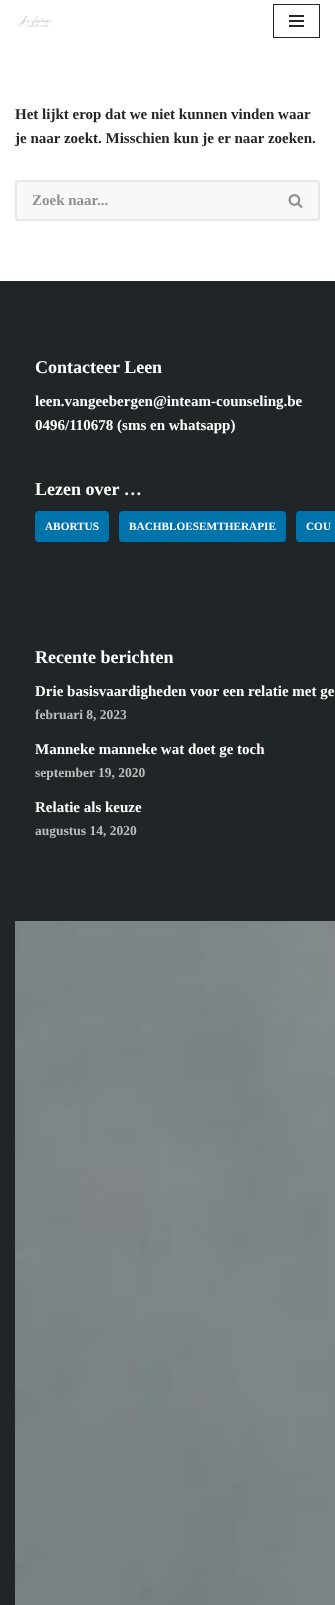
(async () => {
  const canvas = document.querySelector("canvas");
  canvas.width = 335;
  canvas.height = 1605;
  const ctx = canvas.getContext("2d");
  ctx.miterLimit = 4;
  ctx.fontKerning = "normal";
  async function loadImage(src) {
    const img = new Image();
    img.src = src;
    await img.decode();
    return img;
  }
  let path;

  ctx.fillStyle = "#ffffff";
  ctx.fillRect(0, 0, 335, 1605);
  ctx.drawImage(await loadImage("img/1.png"), 18, 15, 35, 12);
  ctx.strokeStyle = "#272626";
  ctx.strokeRect(273.5, 4.5, 46, 33);
  for (const [x, y, w, h, color] of [
    [289, 15, 15, 2, "#272626"],
    [289, 20, 15, 2, "#272626"],
    [289, 25, 15, 2, "#272626"],
  ]) {
    ctx.fillStyle = color;
    ctx.fillRect(x, y, w, h);
  }
  ctx.fillStyle = "#f8f8f8";
  ctx.beginPath();
  ctx.roundRect(15, 180, 258, 41, [3, 0, 0, 3]);
  ctx.fill();
  ctx.fillStyle = "#e7e7e7";
  path = new Path2D("M18 180H273V221H18C16 221 15 220 15 218V183C15 181 16 180 18 180ZM18 182H273V219H18H17V183Z");
  ctx.fill(path, "evenodd");
  ctx.fillStyle = "#f8f8f8";
  ctx.beginPath();
  ctx.roundRect(273, 180, 47, 41, [0, 3, 3, 0]);
  ctx.fill();
  ctx.fillStyle = "#e7e7e7";
  path = new Path2D("M273 180H317C319 180 320 181 320 183V218C320 220 319 221 317 221H273ZM273 182H317C318 182 318 182 318 183V218C318 219 318 219 317 219H273Z");
  ctx.fill(path, "evenodd");
  ctx.drawImage(await loadImage("img/2.png"), 288, 194, 15, 14);
  ctx.fillStyle = "#202527";
  ctx.fillRect(0, 281, 335, 1324);
  ctx.fillStyle = "#0073aa";
  ctx.beginPath();
  ctx.roundRect(35, 511, 74, 31, 4);
  ctx.fill();
  ctx.beginPath();
  ctx.roundRect(119, 511, 167, 31, 4);
  ctx.fill();
  ctx.beginPath();
  ctx.roundRect(296, 511, 39, 31, [4, 0, 0, 4]);
  ctx.fill();
  ctx.drawImage(await loadImage("img/3.png"), 15, 921, 320, 684);
  ctx.font = "bold 15px Liberation Serif";
  ctx.fillStyle = "#272626";
  ctx.fillText("Het lijkt erop dat we niet kunnen vinden waar", 15, 119);
  ctx.fillText("je naar zoekt. Misschien kun je er naar zoeken.", 15, 143);
  ctx.fillStyle = "#908f8f";
  ctx.fillText("Zoek naar...", 32, 205);
  ctx.font = "bold 18px Liberation Serif";
  ctx.fillStyle = "#ffffff";
  ctx.fillText("Contacteer Leen", 35, 373);
  ctx.font = "bold 15px Liberation Serif";
  ctx.fillText("leen.vangeebergen@inteam-counseling.be", 35, 406);
  ctx.fillText("0496/110678 (sms en whatsapp)", 35, 430);
  ctx.font = "bold 18px Liberation Serif";
  ctx.fillText("Lezen over …", 35, 495);
  ctx.font = "bold 11.25px Liberation Serif";
  for (const [text, x, y] of [
    ["ABORTUS", 45, 530],
    ["BACHBLOESEMTHERAPIE", 129, 530],
    ["COU", 306, 530],
  ]) {
    ctx.fillText(text, x, y);
  }
  ctx.font = "bold 18px Liberation Serif";
  ctx.fillText("Recente berichten", 35, 663);
  ctx.font = "bold 15px Liberation Serif";
  ctx.fillText("Drie basisvaardigheden voor een relatie met ge", 35, 696);
  ctx.font = "bold 13.5px Liberation Serif";
  ctx.fillStyle = "#bcbebe";
  ctx.fillText("februari 8, 2023", 35, 719);
  ctx.font = "bold 15px Liberation Serif";
  ctx.fillStyle = "#ffffff";
  ctx.fillText("Manneke manneke wat doet ge toch", 35, 754);
  ctx.font = "bold 13.5px Liberation Serif";
  ctx.fillStyle = "#bcbebe";
  ctx.fillText("september 19, 2020", 35, 777);
  ctx.font = "bold 15px Liberation Serif";
  ctx.fillStyle = "#ffffff";
  ctx.fillText("Relatie als keuze", 35, 812);
  ctx.font = "bold 13.5px Liberation Serif";
  ctx.fillStyle = "#bcbebe";
  ctx.fillText("augustus 14, 2020", 35, 835);
})();
